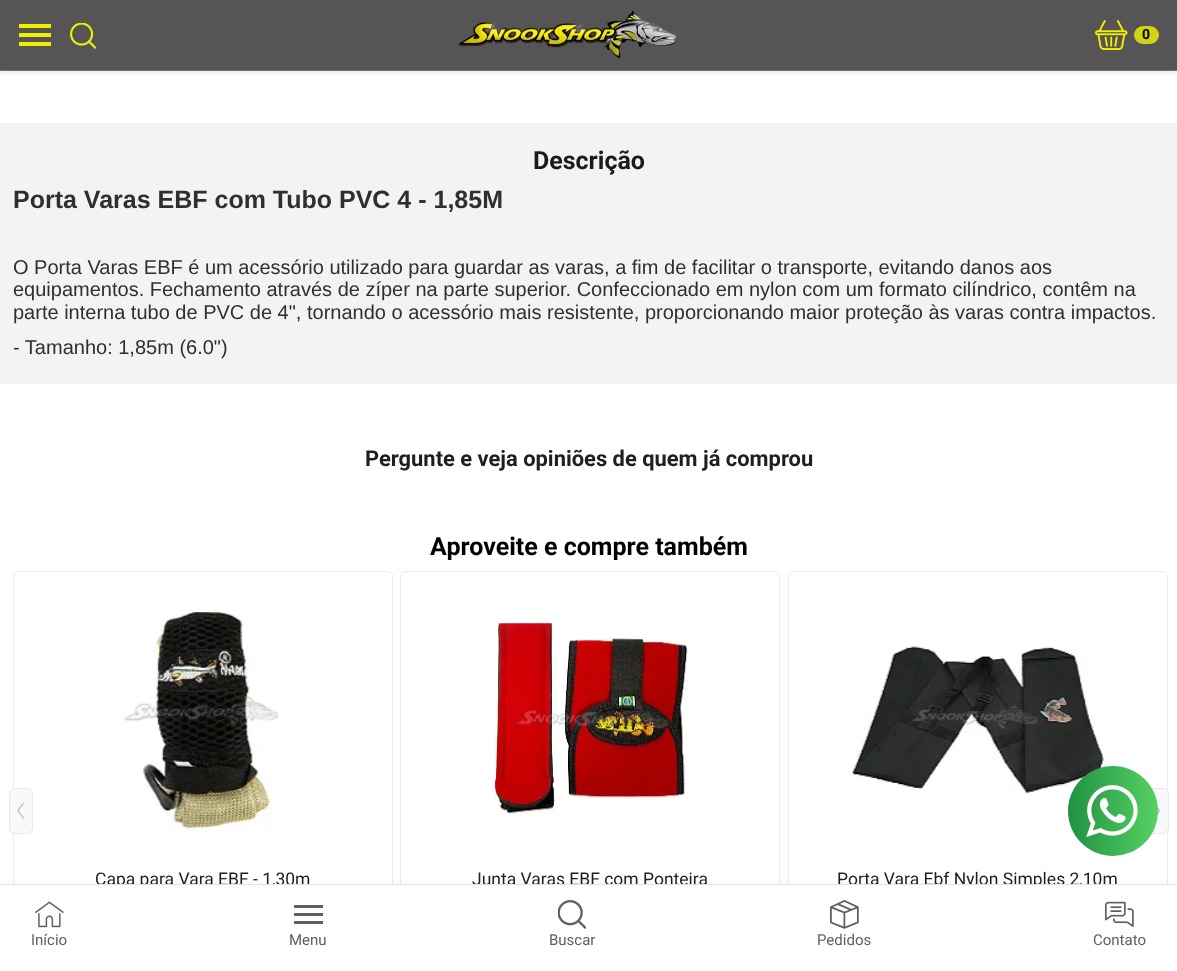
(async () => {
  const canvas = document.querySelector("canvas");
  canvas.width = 1177;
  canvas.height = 971;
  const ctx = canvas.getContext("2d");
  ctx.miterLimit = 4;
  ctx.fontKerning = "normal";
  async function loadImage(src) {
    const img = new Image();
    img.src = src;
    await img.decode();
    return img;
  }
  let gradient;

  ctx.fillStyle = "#ffffff";
  ctx.fillRect(0, 0, 1177, 971);
  ctx.fillStyle = "rgba(82, 82, 82, 0.13)";
  ctx.filter = "blur(2.5px)";
  ctx.beginPath();
  ctx.rect(0, 1, 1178, 72);
  ctx.fill();
  ctx.filter = "none";
  for (const [x, y, w, h, color] of [
    [0, 0, 1177, 70, "#565454"],
    [0, 70, 1177, 1, "#737171"],
    [19, 42, 32, 4, "#eff100"],
    [19, 33, 32, 4, "#eff100"],
    [19, 24, 32, 4, "#eff100"],
  ]) {
    ctx.fillStyle = color;
    ctx.fillRect(x, y, w, h);
  }
  ctx.drawImage(await loadImage("img/1.png"), 70, 23, 26, 26);
  ctx.drawImage(await loadImage("img/2.png"), 457, 10, 221, 49);
  ctx.drawImage(await loadImage("img/3.png"), 1095, 20, 33, 30);
  ctx.fillStyle = "#d2d317";
  ctx.beginPath();
  ctx.roundRect(1134, 26, 25, 18, 9);
  ctx.fill();
  ctx.fillStyle = "#f3f3f3";
  ctx.fillRect(0, 123, 1177, 261);
  ctx.beginPath();
  ctx.roundRect(13.5, 571.5, 379, 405, 4.5);
  ctx.strokeStyle = "#ececec";
  ctx.stroke();
  ctx.fillStyle = "#f9f9f9";
  ctx.beginPath();
  ctx.roundRect(9.5, 788.5, 23, 45, 5.5);
  ctx.fill();
  ctx.strokeStyle = "#e8e8e8";
  ctx.stroke();
  ctx.drawImage(await loadImage("img/4.png"), 17, 803, 7, 16);
  ctx.beginPath();
  ctx.roundRect(788.5, 571.5, 379, 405, 4.5);
  ctx.strokeStyle = "#ececec";
  ctx.stroke();
  ctx.beginPath();
  ctx.roundRect(1145.5, 788.5, 23, 45, 5.5);
  ctx.fill();
  ctx.strokeStyle = "#e8e8e8";
  ctx.stroke();
  ctx.drawImage(await loadImage("img/5.png"), 1157, 806, 4, 10);
  ctx.drawImage(await loadImage("img/6.png"), 123, 610, 156, 222);
  ctx.beginPath();
  ctx.roundRect(400.5, 571.5, 379, 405, 4.5);
  ctx.strokeStyle = "#ececec";
  ctx.stroke();
  ctx.drawImage(await loadImage("img/7.png"), 493, 621, 195, 193);
  ctx.drawImage(await loadImage("img/8.png"), 852, 646, 252, 147);
  gradient = ctx.createLinearGradient(1068, 811, 1158, 811);
  gradient.addColorStop(0, "#209142");
  gradient.addColorStop(1, "#56d263");
  ctx.fillStyle = gradient;
  ctx.beginPath();
  ctx.arc(1113, 811, 45, 0, Math.PI * 2);
  ctx.fill();
  ctx.drawImage(await loadImage("img/9.png"), 1086, 785, 52, 52);
  ctx.fillStyle = "rgba(82, 82, 82, 0.08)";
  ctx.filter = "blur(2.5px)";
  ctx.beginPath();
  ctx.rect(0, 884, 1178, 87);
  ctx.fill();
  ctx.filter = "none";
  ctx.font = "bold 14px Roboto";
  ctx.fillStyle = "#000000";
  ctx.fillText("0", 1142, 39);
  ctx.font = "bold 25px Roboto";
  ctx.fillStyle = "#1a1a1a";
  ctx.fillText("Descrição", 533, 169);
  ctx.font = "bold 25px Liberation Sans";
  ctx.fillStyle = "#2f2f2f";
  ctx.fillText("Porta Varas EBF com Tubo PVC 4 - 1,85M", 13, 208);
  ctx.font = "20px Liberation Sans";
  for (const [text, x, y] of [
    ["O Porta Varas EBF é um acessório utilizado para guardar as varas, a fim de facilitar o transporte, evitando danos aos", 13, 274],
    ["equipamentos. Fechamento através de zíper na parte superior. Confeccionado em nylon com um formato cilíndrico, contêm na", 13, 296],
    ["parte interna tubo de PVC de 4\", tornando o acessório mais resistente, proporcionando maior proteção às varas contra impactos.", 13, 319],
    ["- Tamanho: 1,85m (6.0\")", 13, 354],
  ]) {
    ctx.fillText(text, x, y);
  }
  ctx.font = "bold 21.9px Roboto";
  ctx.fillStyle = "#201f1f";
  ctx.fillText("Pergunte e veja opiniões de quem já comprou", 365, 466);
  ctx.font = "bold 25px Roboto";
  ctx.fillStyle = "#000000";
  ctx.fillText("Aproveite e compre também", 430, 555);
  ctx.font = "17.5px Roboto";
  ctx.fillStyle = "#201f1f";
  for (const [text, x, y] of [
    ["Capa para Vara EBF - 1,30m", 95, 885],
    ["Junta Varas EBF com Ponteira", 472, 885],
    ["Porta Vara Ebf Nylon Simples 2,10m", 837, 885],
  ]) {
    ctx.fillText(text, x, y);
  }
  ctx.fillStyle = "#ffffff";
  ctx.fillRect(0, 885, 1177, 86);
  ctx.fillStyle = "#e2e2e2";
  ctx.fillRect(0, 884, 1177, 1);
  ctx.drawImage(await loadImage("img/10.png"), 35, 901, 29, 27);
  ctx.font = "15px Roboto";
  ctx.fillStyle = "#606060";
  ctx.fillText("Início", 31, 945);
  for (const [x, y, w, h, color] of [
    [294, 921, 29, 3, "#606060"],
    [294, 913, 29, 3, "#606060"],
    [294, 905, 29, 3, "#606060"],
  ]) {
    ctx.fillStyle = color;
    ctx.fillRect(x, y, w, h);
  }
  ctx.fillText("Menu", 289, 945);
  ctx.drawImage(await loadImage("img/11.png"), 558, 900, 28, 29);
  ctx.fillText("Buscar", 549, 945);
  ctx.drawImage(await loadImage("img/12.png"), 830, 900, 29, 29);
  ctx.fillText("Pedidos", 817, 945);
  ctx.drawImage(await loadImage("img/13.png"), 1105, 901, 29, 26);
  ctx.fillText("Contato", 1093, 945);
})();
